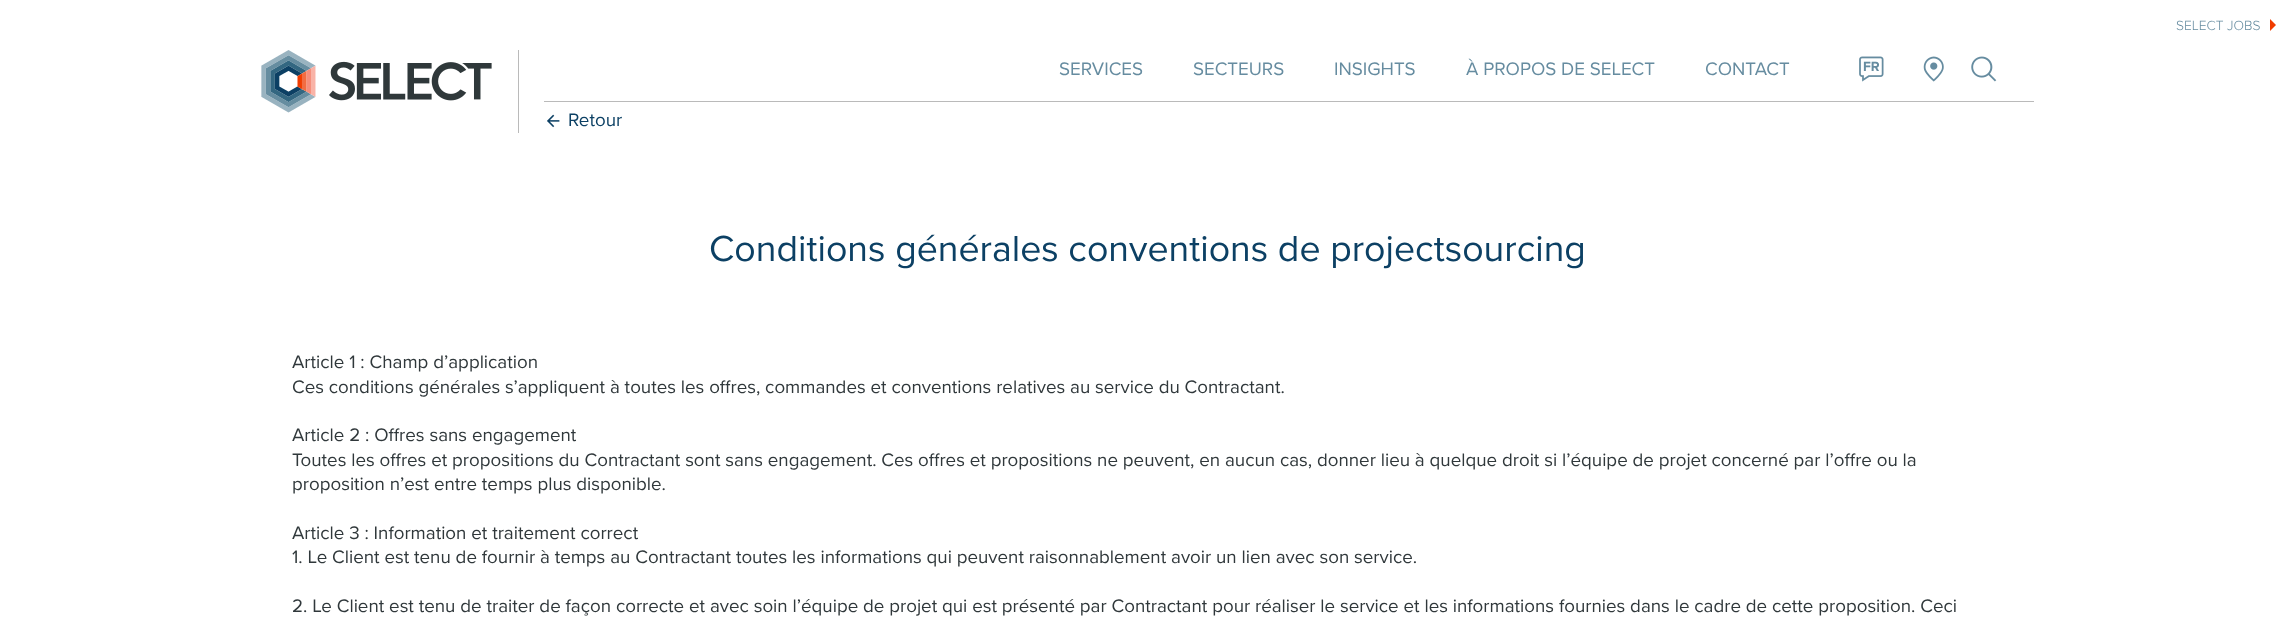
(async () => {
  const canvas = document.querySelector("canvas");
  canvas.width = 2294;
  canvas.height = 626;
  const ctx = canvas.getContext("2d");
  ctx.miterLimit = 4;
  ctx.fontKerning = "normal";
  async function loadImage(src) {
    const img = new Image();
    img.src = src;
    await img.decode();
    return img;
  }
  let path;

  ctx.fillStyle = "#ffffff";
  ctx.fillRect(0, 0, 2294, 626);
  ctx.fillStyle = "#f03c00";
  path = new Path2D("M2270 31V19L2276 25Z");
  ctx.fill(path);
  ctx.drawImage(await loadImage("img/1.png"), 261, 50, 231, 63);
  ctx.fillStyle = "#bababa";
  ctx.fillRect(518, 50, 1, 83);
  ctx.drawImage(await loadImage("img/2.png"), 1859, 56, 25, 26);
  ctx.drawImage(await loadImage("img/3.png"), 1923, 56, 21, 26);
  ctx.drawImage(await loadImage("img/4.png"), 1971, 56, 26, 26);
  ctx.fillRect(544, 101, 1490, 1);
  ctx.drawImage(await loadImage("img/5.png"), 547, 114, 13, 14);
  ctx.font = "300 13.75px Proxima Nova";
  ctx.fillStyle = "#668ca0";
  ctx.fillText("SELECT JOBS", 2176, 30);
  ctx.font = "18.75px Proxima Nova";
  for (const [text, x, y] of [
    ["SERVICES", 1059, 75],
    ["SECTEURS", 1193, 75],
    ["INSIGHTS", 1334, 75],
    ["À PROPOS DE SELECT", 1466, 75],
    ["CONTACT", 1705, 75],
  ]) {
    ctx.fillText(text, x, y);
  }
  ctx.font = "bold 13.75px Proxima Nova";
  ctx.fillText("FR", 1863, 71);
  ctx.font = "18.75px Proxima Nova";
  ctx.fillStyle = "#0c4064";
  ctx.fillText("Retour", 568, 126);
  ctx.font = "37.5px Proxima Nova";
  ctx.fillText("Conditions générales conventions de projectsourcing", 709, 261);
  ctx.font = "18.75px Proxima Nova";
  ctx.fillStyle = "#30383b";
  for (const [text, x, y] of [
    ["Article 1 : Champ d’application", 292, 368],
    ["Ces conditions générales s’appliquent à toutes les offres, commandes et conventions relatives au service du Contractant.", 292, 393],
    ["Article 2 : Offres sans engagement", 292, 441],
    ["Toutes les offres et propositions du Contractant sont sans engagement. Ces offres et propositions ne peuvent, en aucun cas, donner lieu à quelque droit si l’équipe de projet concerné par l’offre ou la", 292, 466],
    ["proposition n’est entre temps plus disponible.", 292, 490],
    ["Article 3 : Information et traitement correct", 292, 539],
    ["1. Le Client est tenu de fournir à temps au Contractant toutes les informations qui peuvent raisonnablement avoir un lien avec son service.", 292, 563],
    ["2. Le Client est tenu de traiter de façon correcte et avec soin l’équipe de projet qui est présenté par Contractant pour réaliser le service et les informations fournies dans le cadre de cette proposition. Ceci", 292, 612],
  ]) {
    ctx.fillText(text, x, y);
  }
})();
